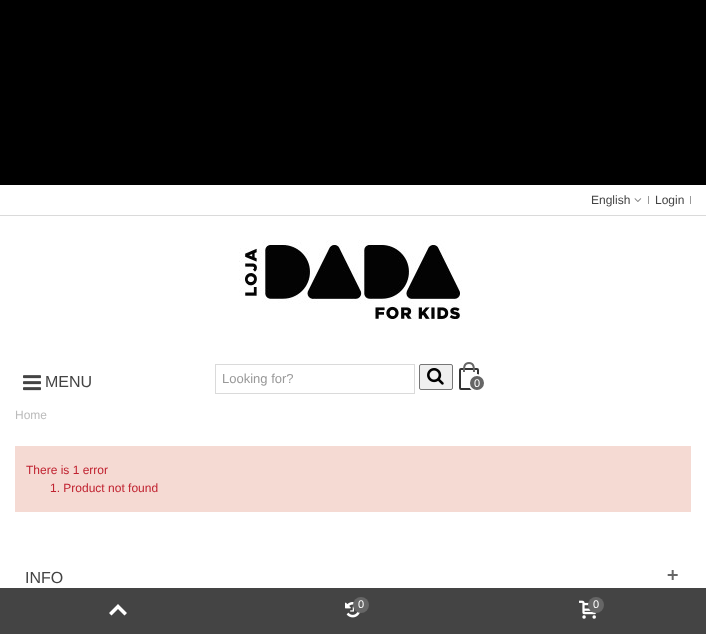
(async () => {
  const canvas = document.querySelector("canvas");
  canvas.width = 706;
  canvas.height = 634;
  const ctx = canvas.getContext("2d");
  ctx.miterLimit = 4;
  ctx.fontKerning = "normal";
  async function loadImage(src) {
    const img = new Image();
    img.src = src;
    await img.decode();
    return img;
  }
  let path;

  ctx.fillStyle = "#ffffff";
  ctx.fillRect(0, 0, 706, 634);
  ctx.fillStyle = "#000000";
  ctx.fillRect(0, 0, 706, 185);
  ctx.fillStyle = "#dadada";
  ctx.fillRect(0, 215, 706, 1);
  ctx.drawImage(await loadImage("img/1.png"), 634, 198, 8, 4);
  ctx.fillStyle = "#999999";
  ctx.fillRect(648, 196, 1, 8);
  ctx.fillRect(690, 196, 1, 8);
  ctx.drawImage(await loadImage("img/2.png"), 239, 240, 223, 80);
  ctx.drawImage(await loadImage("img/3.png"), 23, 375, 18, 16);
  ctx.strokeStyle = "#dadada";
  ctx.strokeRect(215.5, 364.5, 199, 29);
  ctx.fillStyle = "#efefef";
  ctx.beginPath();
  ctx.roundRect(419.5, 364.5, 33, 25, 1.5);
  ctx.fill();
  ctx.strokeStyle = "#767676";
  ctx.stroke();
  ctx.drawImage(await loadImage("img/4.png"), 427, 368, 17, 17);
  ctx.beginPath();
  ctx.roundRect(460, 369, 18, 20, 1);
  ctx.strokeStyle = "#333333";
  ctx.lineWidth = 2;
  ctx.stroke();
  ctx.fillStyle = "#666666";
  path = new Path2D("M469 362C475 362 475 367.5 475 372H463C463 367.5 463 362 469 362ZM469 364C473.5 364 473 369 473 372H465C465 369 464.5 364 469 364Z");
  ctx.fill(path, "evenodd");
  ctx.beginPath();
  ctx.arc(477, 383, 8, 0, Math.PI * 2);
  ctx.fill();
  ctx.strokeStyle = "#ffffff";
  ctx.stroke();
  ctx.fillStyle = "#f5dad3";
  ctx.fillRect(15, 446, 676, 66);
  ctx.drawImage(await loadImage("img/5.png"), 667, 570, 11, 10);
  ctx.fillStyle = "#444444";
  ctx.fillRect(0, 588, 706, 46);
  ctx.fillStyle = "#ffffff";
  path = new Path2D("M109 613L118 604L127 613L124.5 615.5L118 609L111.5 615.5Z");
  ctx.fill(path);
  ctx.drawImage(await loadImage("img/6.png"), 345, 602, 15, 16);
  ctx.fillStyle = "#666666";
  ctx.beginPath();
  ctx.arc(361, 605, 8, 0, Math.PI * 2);
  ctx.fill();
  ctx.drawImage(await loadImage("img/7.png"), 579, 600, 17, 19);
  ctx.beginPath();
  ctx.arc(596, 605, 8, 0, Math.PI * 2);
  ctx.fill();
  ctx.font = "12px Liberation Sans";
  ctx.fillStyle = "#444444";
  ctx.fillText("English", 591, 204);
  ctx.fillText("Login", 655, 204);
  ctx.font = "16px Liberation Sans";
  ctx.fillText("MENU", 45, 387);
  ctx.font = "13px Liberation Sans";
  ctx.fillStyle = "#999999";
  ctx.fillText("Looking for?", 222, 383);
  ctx.font = "11px Liberation Sans";
  ctx.fillStyle = "#ffffff";
  ctx.fillText("0", 474, 387);
  ctx.font = "12px Liberation Sans";
  ctx.fillStyle = "#bbbbbb";
  ctx.fillText("Home", 15, 419);
  ctx.fillStyle = "#c02230";
  ctx.fillText("There is 1 error", 26, 474);
  ctx.fillText("1. Product not found", 50, 492);
  ctx.font = "16px Liberation Sans";
  ctx.fillStyle = "#444444";
  ctx.fillText("INFO", 25, 583);
  ctx.font = "11px Liberation Sans";
  ctx.fillStyle = "#ffffff";
  ctx.fillText("0", 358, 608);
  ctx.fillText("0", 593, 608);
})();
